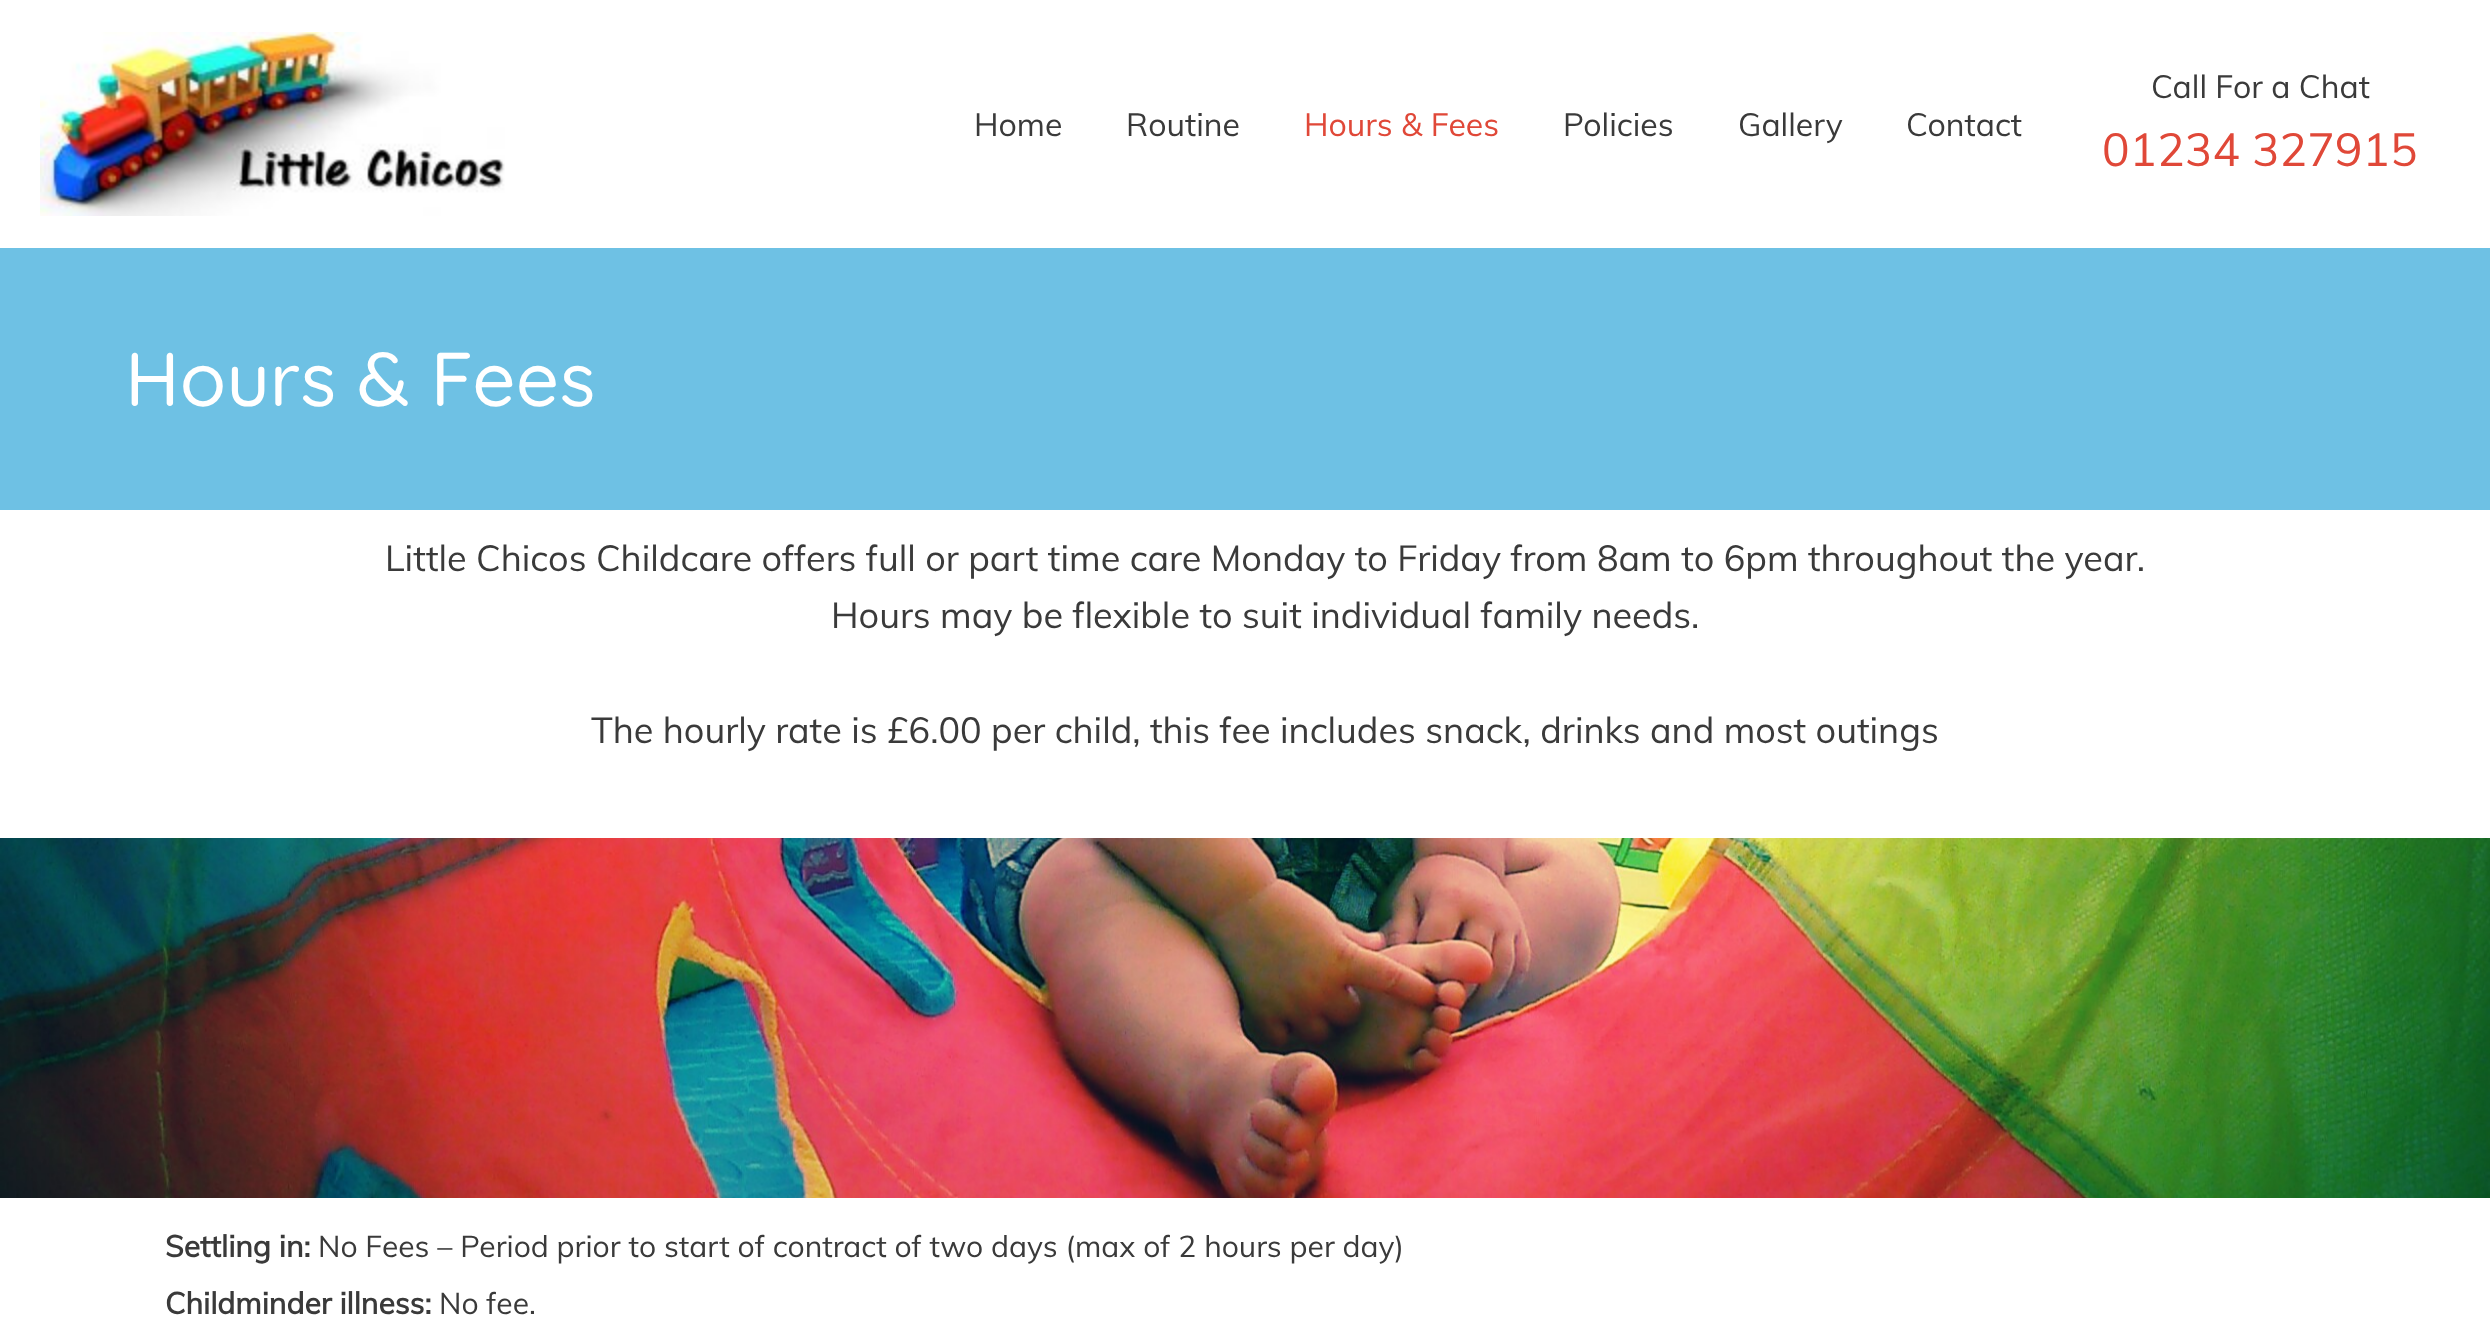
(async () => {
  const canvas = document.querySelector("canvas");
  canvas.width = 2490;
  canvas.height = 1342;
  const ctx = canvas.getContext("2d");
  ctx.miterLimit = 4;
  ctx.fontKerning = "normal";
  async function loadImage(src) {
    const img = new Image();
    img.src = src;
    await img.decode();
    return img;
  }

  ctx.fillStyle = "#ffffff";
  ctx.fillRect(0, 0, 2490, 1342);
  ctx.drawImage(await loadImage("img/1.png"), 40, 32, 465, 184);
  ctx.fillStyle = "#6ec1e4";
  ctx.fillRect(0, 248, 2490, 262);
  ctx.drawImage(await loadImage("img/2.png"), 0, 838, 2490, 360);
  ctx.font = "32px Muli";
  ctx.fillStyle = "#3a3a3a";
  ctx.fillText("Home", 974, 136);
  ctx.fillText("Routine", 1126, 136);
  ctx.fillStyle = "#e04838";
  ctx.fillText("Hours & Fees", 1304, 136);
  ctx.fillStyle = "#3a3a3a";
  for (const [text, x, y] of [
    ["Policies", 1563, 136],
    ["Gallery", 1738, 136],
    ["Contact", 1906, 136],
    ["Call For a Chat", 2151, 98],
  ]) {
    ctx.fillText(text, x, y);
  }
  ctx.font = "46px Muli";
  ctx.fillStyle = "#e04838";
  ctx.fillText("01234 327915", 2102, 166);
  ctx.font = "300 76px Quicksand";
  ctx.fillStyle = "#ffffff";
  ctx.fillText("Hours & Fees", 125, 406);
  ctx.font = "36px Muli";
  ctx.fillStyle = "#3a3a3a";
  for (const [text, x, y] of [
    ["Little Chicos Childcare offers full or part time care Monday to Friday from 8am to 6pm throughout the year.", 385, 571],
    ["Hours may be flexible to suit individual family needs.", 831, 628],
    ["The hourly rate is £6.00 per child, this fee includes snack, drinks and most outings", 591, 743],
  ]) {
    ctx.fillText(text, x, y);
  }
  ctx.font = "bold 30px Muli";
  ctx.fillText("Settling in:", 165, 1257);
  ctx.font = "30px Muli";
  ctx.fillText("No Fees – Period prior to start of contract of two days (max of 2 hours per day)", 318, 1257);
  ctx.font = "bold 30px Muli";
  ctx.fillText("Childminder illness:", 165, 1314);
  ctx.font = "30px Muli";
  ctx.fillText("No fee.", 439, 1314);
})();
